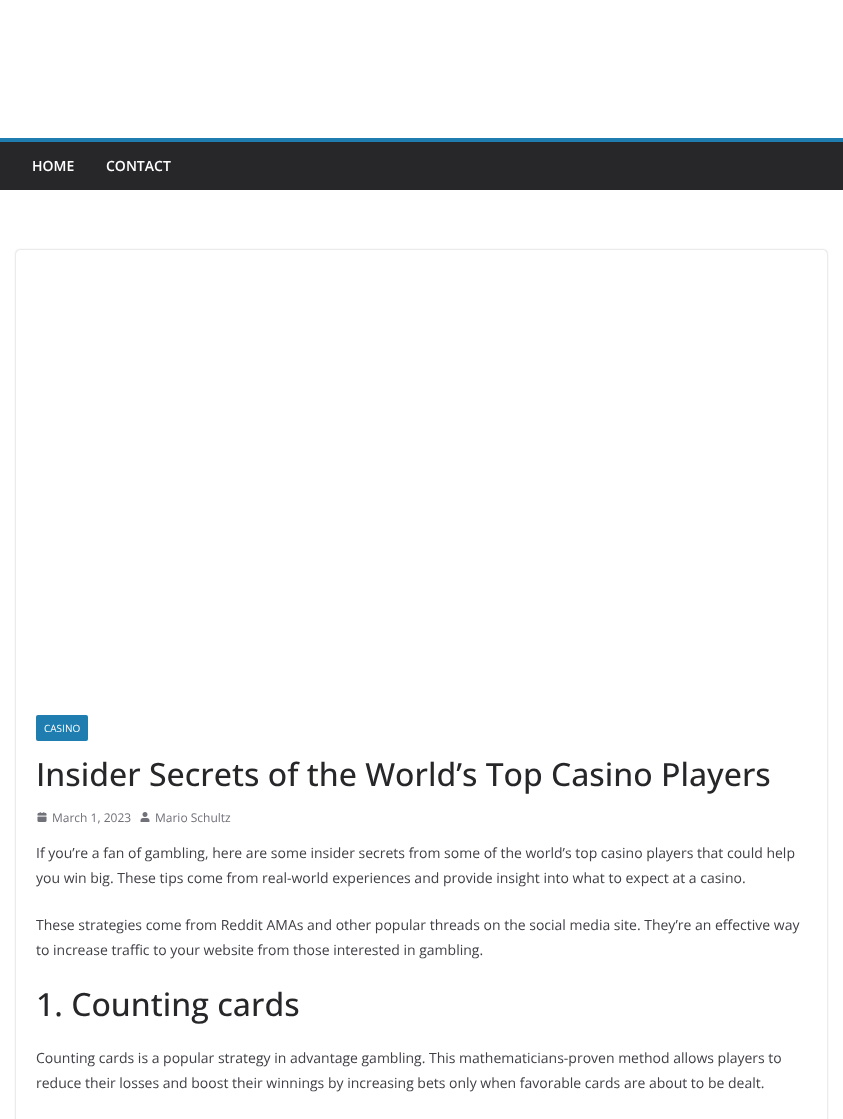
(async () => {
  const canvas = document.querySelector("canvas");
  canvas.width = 843;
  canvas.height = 1119;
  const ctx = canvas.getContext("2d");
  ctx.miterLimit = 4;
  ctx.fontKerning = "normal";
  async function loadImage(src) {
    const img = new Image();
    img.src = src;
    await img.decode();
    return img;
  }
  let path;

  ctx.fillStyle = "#ffffff";
  ctx.fillRect(0, 0, 843, 1119);
  ctx.fillStyle = "#27272a";
  ctx.fillRect(0, 142, 843, 48);
  ctx.fillStyle = "#207daf";
  ctx.fillRect(0, 138, 843, 4);
  ctx.save();
  path = new Path2D("M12 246H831V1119H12ZM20 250H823C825 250 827 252 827 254V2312C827 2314 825 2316 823 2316H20C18 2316 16 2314 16 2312V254C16 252 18 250 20 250Z");
  ctx.clip(path, "evenodd");
  ctx.fillStyle = "rgba(0, 0, 0, 0.24)";
  ctx.filter = "blur(1px)";
  ctx.beginPath();
  ctx.roundRect(16, 250, 811, 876, 4);
  ctx.fill();
  ctx.filter = "none";
  ctx.restore();
  ctx.beginPath();
  ctx.roundRect(36, 715, 52, 26, 2);
  ctx.fill();
  ctx.drawImage(await loadImage("img/1.png"), 37, 812, 10, 10);
  ctx.drawImage(await loadImage("img/2.png"), 140, 812, 10, 10);
  ctx.font = "600 14px Open Sans";
  ctx.fillStyle = "#ffffff";
  ctx.fillText("HOME", 32, 171);
  ctx.fillText("CONTACT", 106, 171);
  ctx.font = "10px Open Sans";
  ctx.fillText("CASINO", 44, 732);
  ctx.font = "500 32px Open Sans";
  ctx.fillStyle = "#27272a";
  ctx.fillText("Insider Secrets of the World’s Top Casino Players", 36, 786);
  ctx.font = "12px Open Sans";
  ctx.fillStyle = "#71717a";
  ctx.fillText("March 1, 2023", 52, 822);
  ctx.fillText("Mario Schultz", 155, 822);
  ctx.font = "14px Open Sans";
  ctx.fillStyle = "#3f3f46";
  for (const [text, x, y] of [
    ["If you’re a fan of gambling, here are some insider secrets from some of the world’s top casino players that could help", 36, 858],
    ["you win big. These tips come from real-world experiences and provide insight into what to expect at a casino.", 36, 883],
    ["These strategies come from Reddit AMAs and other popular threads on the social media site. They’re an effective way", 36, 930],
    ["to increase traffic to your website from those interested in gambling.", 36, 955],
  ]) {
    ctx.fillText(text, x, y);
  }
  ctx.font = "500 32px Open Sans";
  ctx.fillStyle = "#27272a";
  ctx.fillText("1. Counting cards", 36, 1016);
  ctx.font = "14px Open Sans";
  ctx.fillStyle = "#3f3f46";
  ctx.fillText("Counting cards is a popular strategy in advantage gambling. This mathematicians-proven method allows players to", 36, 1063);
  ctx.fillText("reduce their losses and boost their winnings by increasing bets only when favorable cards are about to be dealt.", 36, 1088);
})();
